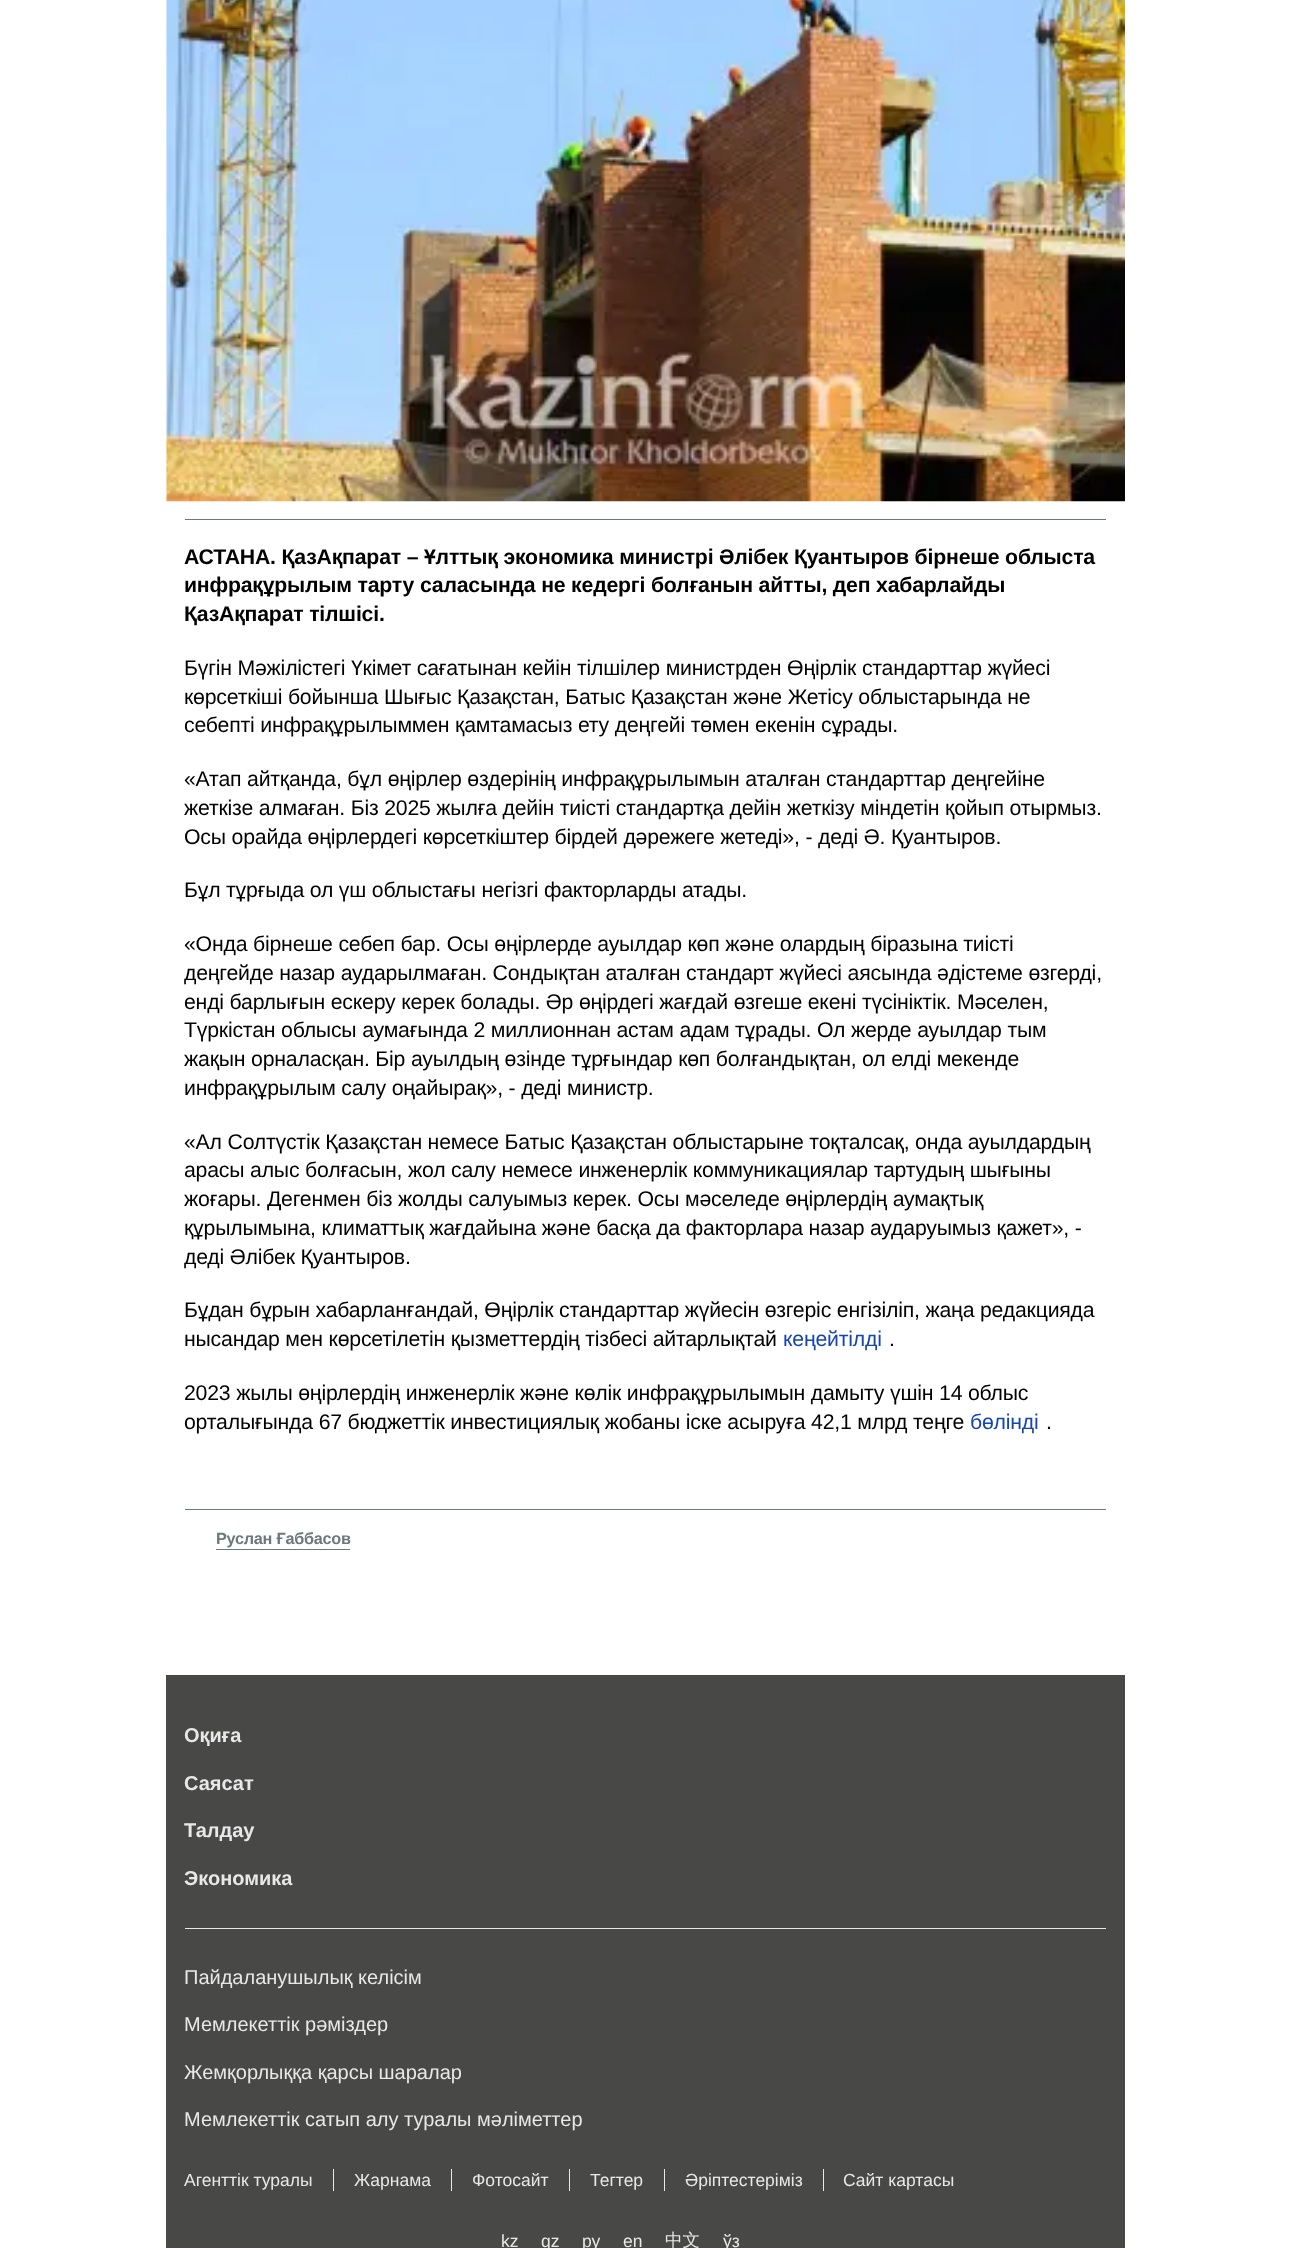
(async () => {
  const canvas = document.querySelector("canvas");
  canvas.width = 1290;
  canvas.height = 2248;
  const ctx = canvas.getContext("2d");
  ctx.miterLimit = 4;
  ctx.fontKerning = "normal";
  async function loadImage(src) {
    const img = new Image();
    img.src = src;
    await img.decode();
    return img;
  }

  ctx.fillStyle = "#ffffff";
  ctx.fillRect(0, 0, 1290, 2248);
  ctx.drawImage(await loadImage("img/1.png"), 166, 0, 959, 502);
  for (const [x, y, w, h, color] of [
    [185, 519, 921, 1, "#6d787a"],
    [185, 1509, 921, 1, "#6d787a"],
    [216, 1549, 134, 1, "#6d787a"],
    [166, 1675, 959, 573, "#484847"],
    [185, 1928, 921, 1, "#e8e8e8"],
    [333, 2169, 1, 22, "#e8e8e8"],
    [451, 2169, 1, 22, "#e8e8e8"],
    [569, 2169, 1, 22, "#e8e8e8"],
    [664, 2169, 1, 22, "#e8e8e8"],
    [823, 2169, 1, 22, "#e8e8e8"],
  ]) {
    ctx.fillStyle = color;
    ctx.fillRect(x, y, w, h);
  }
  ctx.letterSpacing = "-0.2px";
  ctx.font = "bold 21.25px Liberation Sans";
  ctx.fillStyle = "#000000";
  for (const [text, x, y] of [
    ["АСТАНА. ҚазАқпарат – Ұлттық экономика министрі Әлібек Қуантыров бірнеше облыста", 184, 564],
    ["инфрақұрылым тарту саласында не кедергі болғанын айтты, деп хабарлайды", 184, 592],
    ["ҚазАқпарат тілшісі.", 184, 621],
  ]) {
    ctx.fillText(text, x, y);
  }
  ctx.font = "21.25px Liberation Sans";
  for (const [text, x, y] of [
    ["Бүгін Мәжілістегі Үкімет сағатынан кейін тілшілер министрден Өңірлік стандарттар жүйесі", 184, 675],
    ["көрсеткіші бойынша Шығыс Қазақстан, Батыс Қазақстан және Жетісу облыстарында не", 184, 704],
    ["себепті инфрақұрылыммен қамтамасыз ету деңгейі төмен екенін сұрады.", 184, 732],
    ["«Атап айтқанда, бұл өңірлер өздерінің инфрақұрылымын аталған стандарттар деңгейіне", 184, 786],
    ["жеткізе алмаған. Біз 2025 жылға дейін тиісті стандартқа дейін жеткізу міндетін қойып отырмыз.", 184, 815],
    ["Осы орайда өңірлердегі көрсеткіштер бірдей дәрежеге жетеді», - деді Ә. Қуантыров.", 184, 844],
    ["Бұл тұрғыда ол үш облыстағы негізгі факторларды атады.", 184, 897],
    ["«Онда бірнеше себеп бар. Осы өңірлерде ауылдар көп және олардың біразына тиісті", 184, 951],
    ["деңгейде назар аударылмаған. Сондықтан аталған стандарт жүйесі аясында әдістеме өзгерді,", 184, 980],
    ["енді барлығын ескеру керек болады. Әр өңірдегі жағдай өзгеше екені түсініктік. Мәселен,", 184, 1009],
    ["Түркістан облысы аумағында 2 миллионнан астам адам тұрады. Ол жерде ауылдар тым", 184, 1037],
    ["жақын орналасқан. Бір ауылдың өзінде тұрғындар көп болғандықтан, ол елді мекенде", 184, 1066],
    ["инфрақұрылым салу оңайырақ», - деді министр.", 184, 1095],
    ["«Ал Солтүстік Қазақстан немесе Батыс Қазақстан облыстарыне тоқталсақ, онда ауылдардың", 184, 1149],
    ["арасы алыс болғасын, жол салу немесе инженерлік коммуникациялар тартудың шығыны", 184, 1177],
    ["жоғары. Дегенмен біз жолды салуымыз керек. Осы мәселеде өңірлердің аумақтық", 184, 1206],
    ["құрылымына, климаттық жағдайына және басқа да факторлара назар аударуымыз қажет», -", 184, 1235],
    ["деді Әлібек Қуантыров.", 184, 1264],
    ["Бұдан бұрын хабарланғандай, Өңірлік стандарттар жүйесін өзгеріс енгізіліп, жаңа редакцияда", 184, 1317],
    ["нысандар мен көрсетілетін қызметтердің тізбесі айтарлықтай", 184, 1346],
  ]) {
    ctx.fillText(text, x, y);
  }
  ctx.fillStyle = "#1745b0";
  ctx.fillText("кеңейтілді", 783, 1346);
  ctx.fillStyle = "#000000";
  for (const [text, x, y] of [
    [".", 889, 1346],
    ["2023 жылы өңірлердің инженерлік және көлік инфрақұрылымын дамыту үшін 14 облыс", 184, 1400],
    ["орталығында 67 бюджеттік инвестициялық жобаны іске асыруға 42,1 млрд теңге", 184, 1429],
  ]) {
    ctx.fillText(text, x, y);
  }
  ctx.fillStyle = "#1745b0";
  ctx.fillText("бөлінді", 970, 1429);
  ctx.fillStyle = "#000000";
  ctx.fillText(".", 1046, 1429);
  ctx.letterSpacing = "-0.25px";
  ctx.font = "bold 16.25px Liberation Sans";
  ctx.fillStyle = "#6d787a";
  ctx.fillText("Руслан Ғаббасов", 216, 1544);
  ctx.letterSpacing = "0px";
  ctx.font = "bold 20px Liberation Sans";
  ctx.fillStyle = "#e8e8e8";
  for (const [text, x, y] of [
    ["Оқиға", 184, 1742],
    ["Саясат", 184, 1790],
    ["Талдау", 184, 1837],
    ["Экономика", 184, 1885],
  ]) {
    ctx.fillText(text, x, y);
  }
  ctx.font = "20px Liberation Sans";
  for (const [text, x, y] of [
    ["Пайдаланушылық келiciм", 184, 1984],
    ["Мемлекеттік рәміздер", 184, 2031],
    ["Жемқорлыққа қарсы шаралар", 184, 2079],
    ["Мемлекеттік сатып алу туралы мәлiметтер", 184, 2126],
  ]) {
    ctx.fillText(text, x, y);
  }
  ctx.font = "17.5px Liberation Sans";
  for (const [text, x, y] of [
    ["Агенттік туралы", 184, 2186],
    ["Жарнама", 354, 2186],
    ["Фотосайт", 472, 2186],
    ["Тегтер", 590, 2186],
    ["Әріптестеріміз", 685, 2186],
    ["Сайт картасы", 843, 2186],
    ["kz", 501, 2247],
    ["qz", 541, 2247],
    ["ру", 582, 2247],
    ["en", 623, 2247],
  ]) {
    ctx.fillText(text, x, y);
  }
  ctx.font = "500 17.5px WenQuanYi Zen Hei";
  ctx.fillText("中文", 665, 2246);
  ctx.font = "17.5px Liberation Sans";
  ctx.fillText("ўз", 723, 2247);
})();
